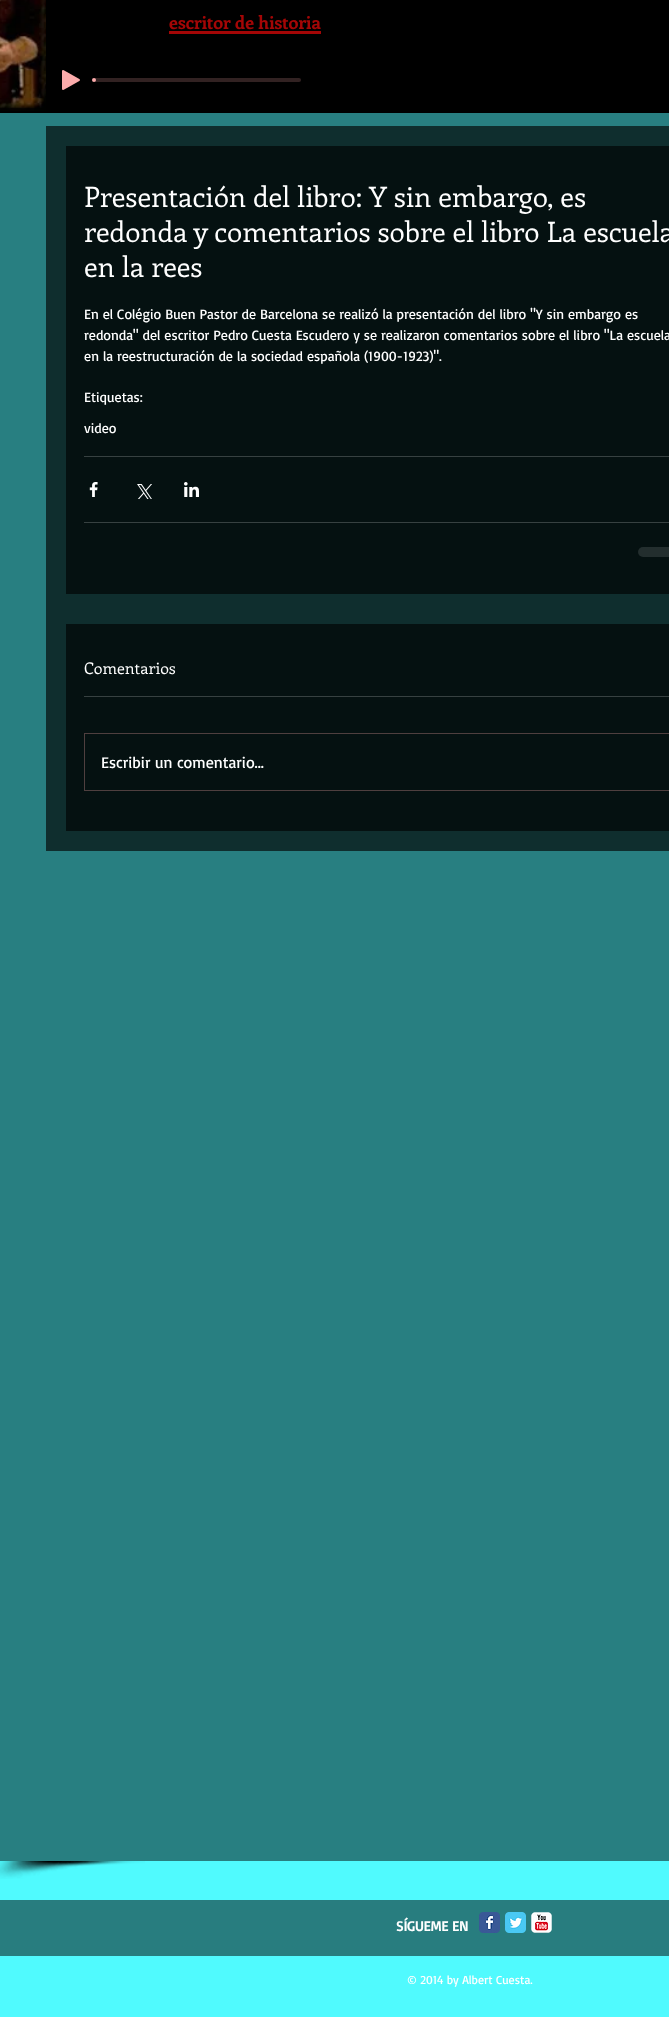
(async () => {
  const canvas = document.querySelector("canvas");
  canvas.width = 669;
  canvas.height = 2017;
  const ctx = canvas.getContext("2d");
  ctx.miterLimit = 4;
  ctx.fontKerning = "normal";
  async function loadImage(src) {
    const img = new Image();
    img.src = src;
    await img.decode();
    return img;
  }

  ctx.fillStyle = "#50fafe";
  ctx.fillRect(0, 0, 669, 2017);
  ctx.fillStyle = "#000000";
  ctx.fillRect(0, 0, 669, 113);
  ctx.drawImage(await loadImage("img/1.png"), 0, 0, 46, 111);
  ctx.fillStyle = "#a40606";
  ctx.fillRect(169, 31, 152, 3);
  ctx.drawImage(await loadImage("img/2.png"), 62, 70, 18, 20);
  ctx.fillStyle = "#322222";
  ctx.beginPath();
  ctx.roundRect(94, 78, 207, 4, 2);
  ctx.fill();
  ctx.fillStyle = "#fcabab";
  ctx.beginPath();
  ctx.arc(94, 80, 2, 0, Math.PI * 2);
  ctx.fill();
  ctx.fillStyle = "rgba(0, 0, 0, 0.49)";
  ctx.fillRect(0, 108, 669, 1753);
  ctx.drawImage(await loadImage("img/3.png"), 0, 1861, 145, 18);
  for (const [x, y, w, h, color] of [
    [46, 126, 623, 725, "#0f2e2e"],
    [66, 146, 603, 448, "#051111"],
    [84, 456, 585, 1, "#374141"],
  ]) {
    ctx.fillStyle = color;
    ctx.fillRect(x, y, w, h);
  }
  ctx.drawImage(await loadImage("img/4.png"), 89, 482, 9, 15);
  ctx.drawImage(await loadImage("img/5.png"), 137, 484, 15, 15);
  ctx.drawImage(await loadImage("img/6.png"), 184, 482, 15, 15);
  ctx.fillRect(84, 522, 585, 1);
  ctx.fillStyle = "#232e2e";
  ctx.beginPath();
  ctx.roundRect(638, 547, 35, 10, 5);
  ctx.fill();
  ctx.fillStyle = "#051111";
  ctx.fillRect(66, 624, 603, 207);
  ctx.fillStyle = "#374141";
  ctx.fillRect(84, 696, 585, 1);
  ctx.strokeStyle = "#4f3f3f";
  ctx.strokeRect(84.5, 733.5, 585, 57);
  ctx.fillStyle = "#287d7f";
  ctx.fillRect(0, 1900, 669, 56);
  ctx.drawImage(await loadImage("img/7.png"), 479, 1912, 21, 21);
  ctx.drawImage(await loadImage("img/8.png"), 505, 1912, 21, 21);
  ctx.drawImage(await loadImage("img/9.png"), 531, 1912, 21, 21);
  ctx.font = "bold 18px Enriqueta";
  ctx.fillStyle = "#a40606";
  ctx.fillText("escritor de historia", 169, 29);
  ctx.font = "28px Enriqueta";
  ctx.fillStyle = "#ffffff";
  for (const [text, x, y] of [
    ["Presentación del libro: Y sin embargo, es", 84, 207],
    ["redonda y comentarios sobre el libro La escuela", 84, 242],
    ["en la rees", 84, 277],
  ]) {
    ctx.fillText(text, x, y);
  }
  ctx.font = "14px Basic";
  for (const [text, x, y] of [
    ["En el Colégio Buen Pastor de Barcelona se realizó la presentación del libro \"Y sin embargo es", 84, 319],
    ["redonda\" del escritor Pedro Cuesta Escudero y se realizaron comentarios sobre el libro \"La escuela", 84, 340],
    ["en la reestructuración de la sociedad española (1900-1923)\".", 84, 361],
    ["Etiquetas:", 84, 402],
    ["video", 84, 433],
  ]) {
    ctx.fillText(text, x, y);
  }
  ctx.font = "16px Enriqueta";
  ctx.fillText("Comentarios", 84, 674);
  ctx.font = "16px Basic";
  ctx.fillText("Escribir un comentario...", 101, 768);
  ctx.font = "bold 14px Basic";
  ctx.fillText("SÍGUEME EN", 396, 1931);
  ctx.font = "12px Basic";
  ctx.fillText("© 2014 by Albert Cuesta.", 407, 1984);
})();
